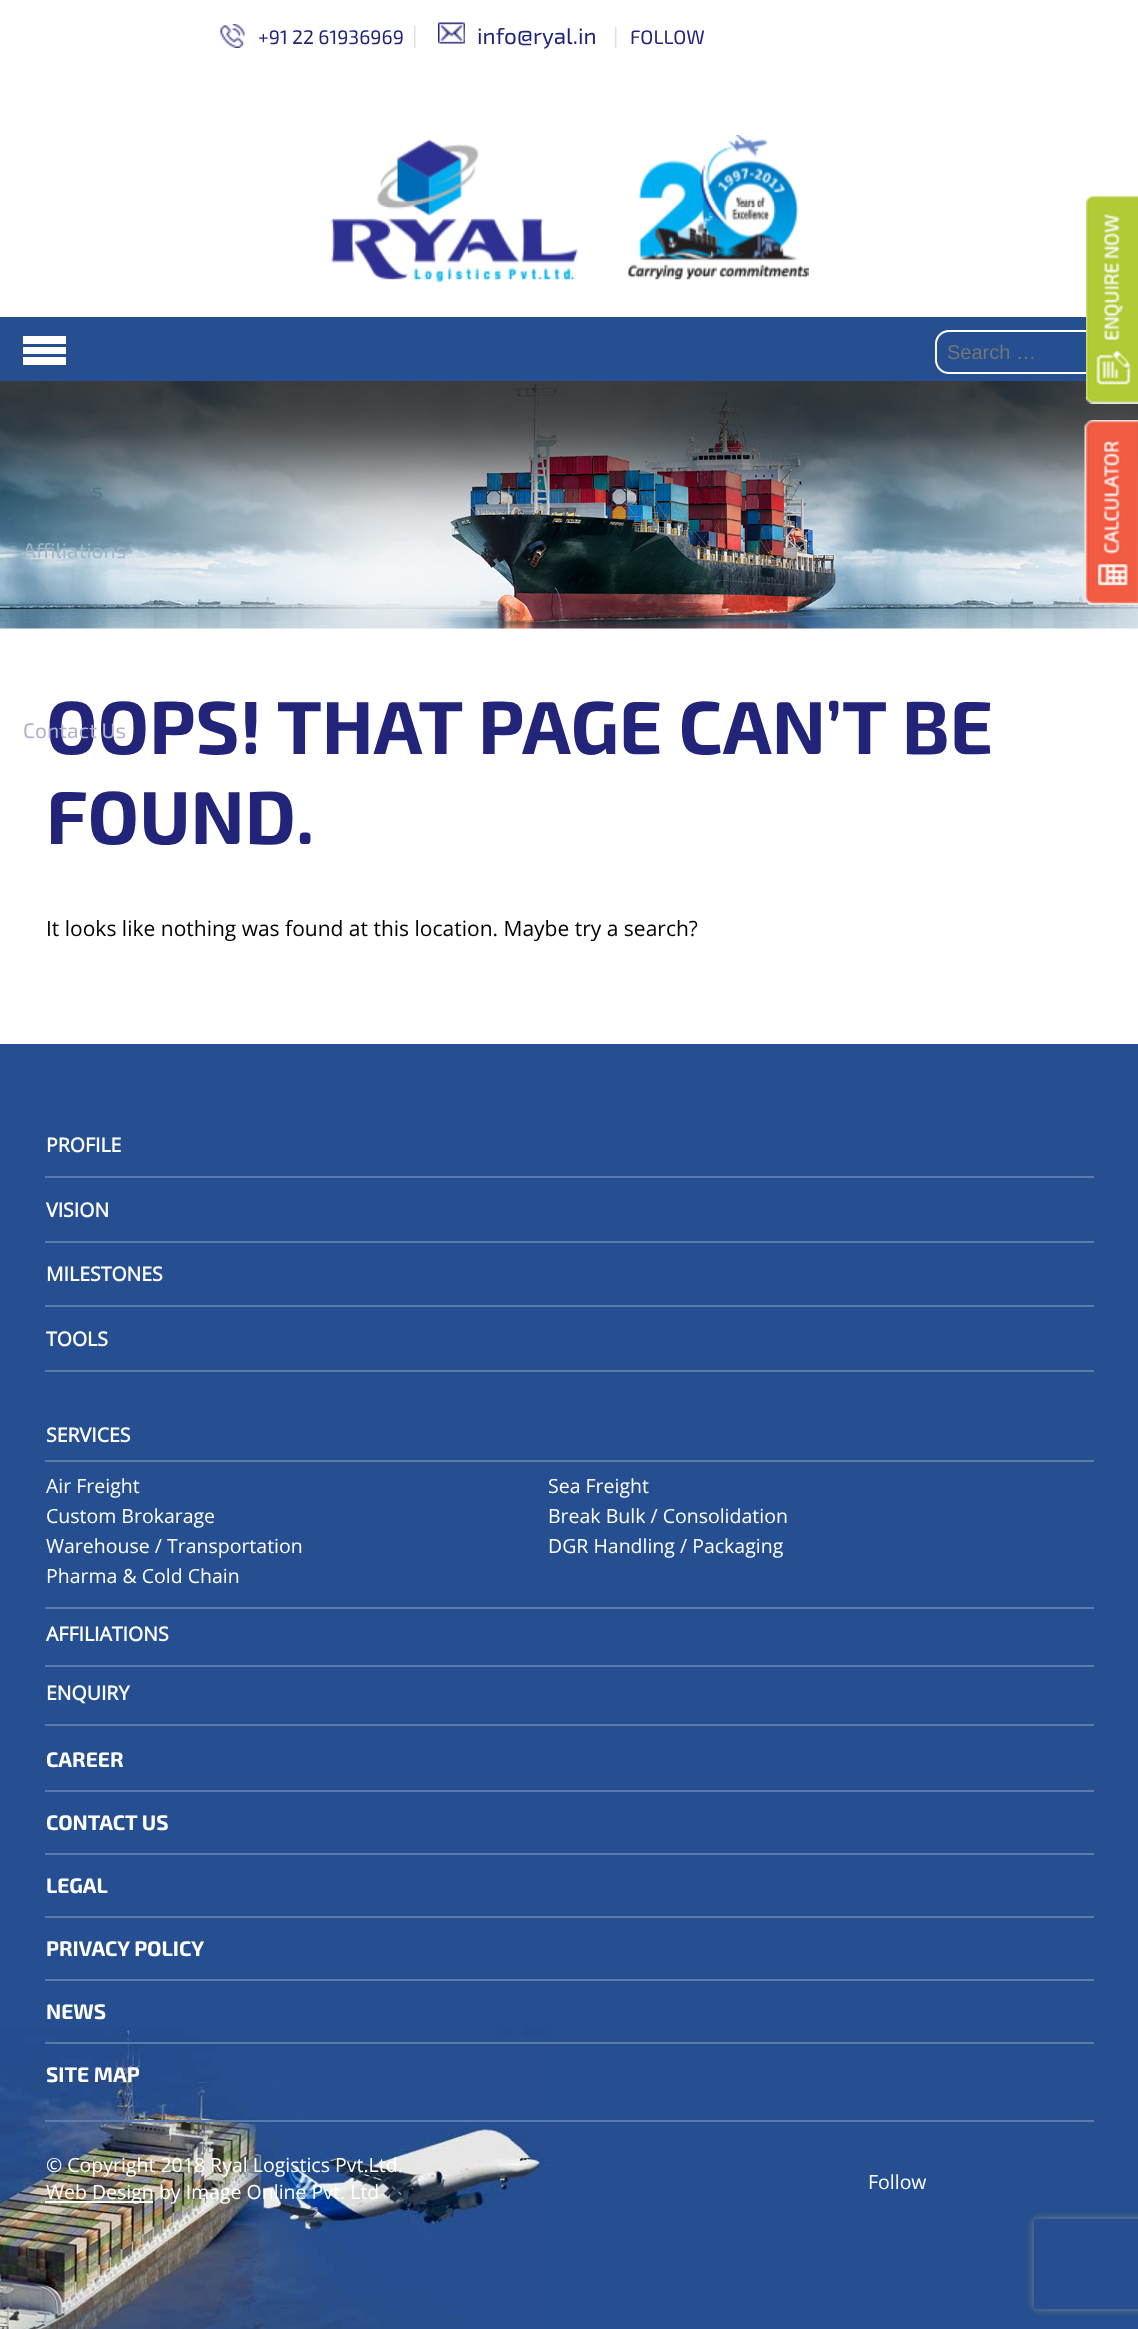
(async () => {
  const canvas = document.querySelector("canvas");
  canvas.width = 1138;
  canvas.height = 2329;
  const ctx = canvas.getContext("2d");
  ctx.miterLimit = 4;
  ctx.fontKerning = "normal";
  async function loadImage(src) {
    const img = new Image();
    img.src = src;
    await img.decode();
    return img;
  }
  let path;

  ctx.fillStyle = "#ffffff";
  ctx.fillRect(0, 0, 1138, 2329);
  ctx.drawImage(await loadImage("img/1.png"), 220, 24, 25, 24);
  ctx.drawImage(await loadImage("img/2.png"), 414, 25, 2, 23);
  ctx.drawImage(await loadImage("img/3.png"), 438, 22, 27, 22);
  ctx.drawImage(await loadImage("img/4.png"), 615, 27, 2, 21);
  ctx.fillStyle = "#254f90";
  ctx.fillRect(0, 317, 1086, 64);
  ctx.beginPath();
  ctx.roundRect(936, 331, 194, 42, 13);
  ctx.strokeStyle = "#ffffff";
  ctx.lineWidth = 2;
  ctx.stroke();
  for (const [x, y, w, h, color] of [
    [23, 357, 43, 8, "#ffffff"],
    [23, 347, 43, 7, "#ffffff"],
    [23, 336, 43, 8, "#ffffff"],
  ]) {
    ctx.fillStyle = color;
    ctx.fillRect(x, y, w, h);
  }
  ctx.drawImage(await loadImage("img/5.png"), 331, 135, 478, 147);
  ctx.drawImage(await loadImage("img/7.png"), 0, 381, 1138, 248);
  ctx.drawImage(await loadImage("img/6.png"), 1086, 195, 52, 209);
  ctx.drawImage(await loadImage("img/8.png"), 1084, 420, 54, 185);
  ctx.fillStyle = "#254f90";
  ctx.fillRect(0, 1044, 1138, 1285);
  ctx.drawImage(await loadImage("img/9.png"), 0, 2027, 547, 302);
  for (const [x, y, w, h, color] of [
    [45, 1176, 1049, 2, "#5c7aab"],
    [45, 1241, 1049, 2, "#5c7aab"],
    [45, 1305, 1049, 2, "#5c7aab"],
    [45, 1370, 1049, 2, "#5c7aab"],
    [45, 1460, 1049, 2, "#5c7aab"],
    [45, 1607, 1049, 2, "#5c7aab"],
    [45, 1724, 1049, 2, "#5c7aab"],
    [45, 1665, 1049, 2, "#5c7aab"],
    [45, 1790, 1049, 2, "#5c7aab"],
    [45, 1853, 1049, 2, "#5c7aab"],
    [45, 1916, 1049, 2, "#5c7aab"],
    [45, 1979, 1049, 2, "#5c7aab"],
    [45, 2042, 1049, 2, "#5c7aab"],
    [45, 2120, 1049, 2, "#5c7aab"],
    [45, 2201, 108, 2, "#ffffff"],
  ]) {
    ctx.fillStyle = color;
    ctx.fillRect(x, y, w, h);
  }
  ctx.save();
  path = new Path2D("M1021 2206H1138V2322H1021ZM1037 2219H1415C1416.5 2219 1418 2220.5 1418 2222V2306C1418 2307.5 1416.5 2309 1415 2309H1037C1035.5 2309 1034 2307.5 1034 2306V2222C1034 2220.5 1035.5 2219 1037 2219Z");
  ctx.clip(path, "evenodd");
  ctx.fillStyle = "#808080";
  ctx.filter = "blur(4px)";
  ctx.beginPath();
  ctx.roundRect(1034, 2219, 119, 90, 3);
  ctx.fill();
  ctx.filter = "none";
  ctx.restore();
  ctx.font = "19.5px 'Exo 2'";
  ctx.fillStyle = "#212478";
  ctx.fillText("+91 22 61936969", 258, 44);
  ctx.font = "22.5px 'Exo 2'";
  ctx.fillText("info@ryal.in", 477, 44);
  ctx.font = "19.5px 'Exo 2'";
  ctx.fillText("FOLLOW", 630, 44);
  ctx.font = "20px Liberation Sans";
  ctx.fillStyle = "#757575";
  ctx.fillText("Search …", 947, 359);
  ctx.font = "21px 'Exo 2'";
  ctx.fillStyle = "#547588";
  ctx.fillText("s", 92, 498);
  ctx.fillStyle = "#9db7c7";
  ctx.fillText("Affiliations", 23, 558);
  ctx.font = "bold 75px 'Exo 2'";
  ctx.fillStyle = "#212478";
  ctx.fillText("OOPS! THAT PAGE CAN’T BE", 46, 754);
  ctx.font = "21px 'Exo 2'";
  ctx.fillStyle = "#b1b2cf";
  ctx.fillText("Contact Us", 23, 738);
  ctx.font = "bold 75px 'Exo 2'";
  ctx.fillStyle = "#212478";
  ctx.fillText("FOUND.", 46, 844);
  ctx.font = "21px Open Sans";
  ctx.fillStyle = "#000000";
  ctx.fillText("It looks like nothing was found at this location. Maybe try a search?", 46, 936);
  ctx.font = "bold 19.5px Open Sans";
  ctx.fillStyle = "#ffffff";
  for (const [text, x, y] of [
    ["PROFILE", 46, 1152],
    ["VISION", 46, 1217],
    ["MILESTONES", 46, 1281],
    ["TOOLS", 46, 1346],
    ["SERVICES", 46, 1442],
  ]) {
    ctx.fillText(text, x, y);
  }
  ctx.font = "19.5px Open Sans";
  for (const [text, x, y] of [
    ["Air Freight", 46, 1493],
    ["Sea Freight", 548, 1493],
    ["Custom Brokarage", 46, 1523],
    ["Break Bulk / Consolidation", 548, 1523],
    ["Warehouse / Transportation", 46, 1553],
    ["DGR Handling / Packaging", 548, 1553],
    ["Pharma & Cold Chain", 46, 1583],
  ]) {
    ctx.fillText(text, x, y);
  }
  ctx.font = "bold 19.5px Open Sans";
  ctx.fillText("AFFILIATIONS", 46, 1641);
  ctx.fillText("ENQUIRY", 46, 1700);
  ctx.font = "bold 21px 'Exo 2'";
  for (const [text, x, y] of [
    ["CAREER", 46, 1767],
    ["CONTACT US", 46, 1830],
    ["LEGAL", 46, 1893],
    ["PRIVACY POLICY", 46, 1956],
    ["NEWS", 46, 2019],
    ["SITE MAP", 46, 2082],
  ]) {
    ctx.fillText(text, x, y);
  }
  ctx.font = "19.5px Open Sans";
  for (const [text, x, y] of [
    ["© Copyright 2018 Ryal Logistics Pvt.Ltd.", 46, 2172],
    ["Web Design by Image Online Pvt. Ltd", 46, 2199],
    ["Follow", 868, 2189],
  ]) {
    ctx.fillText(text, x, y);
  }
})();
